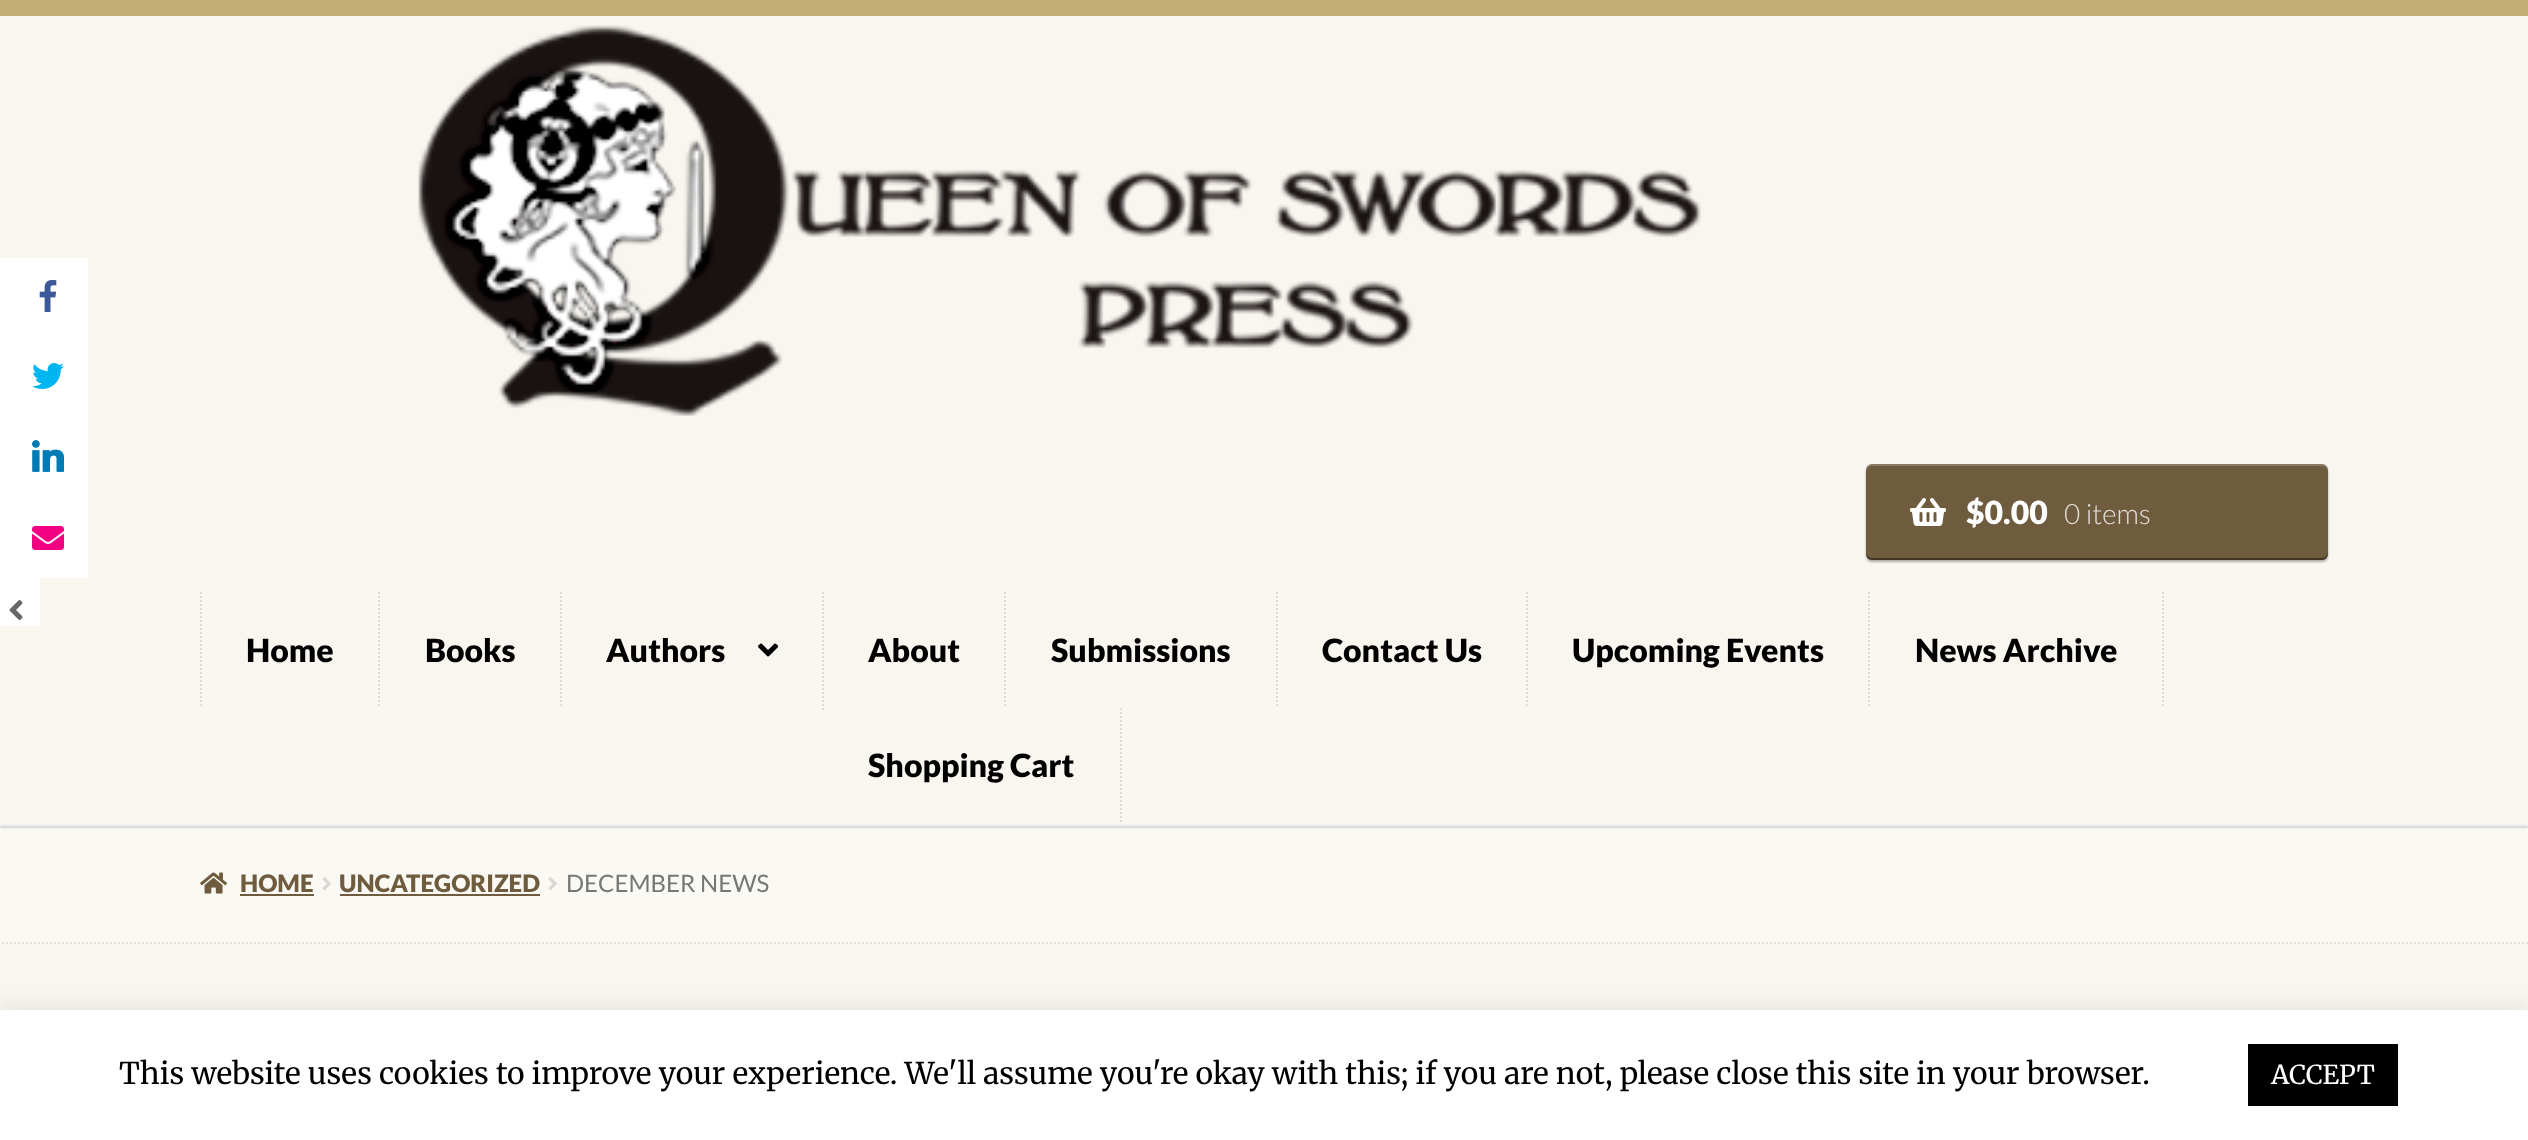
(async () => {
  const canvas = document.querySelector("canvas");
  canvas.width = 2528;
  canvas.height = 1140;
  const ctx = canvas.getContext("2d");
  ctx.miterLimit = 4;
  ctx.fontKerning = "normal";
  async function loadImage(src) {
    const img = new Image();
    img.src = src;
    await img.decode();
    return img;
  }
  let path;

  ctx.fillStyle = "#f9f6f0";
  ctx.fillRect(0, 0, 2528, 1140);
  ctx.fillStyle = "#faf9f3";
  ctx.fillRect(0, 826, 2528, 118);
  ctx.save();
  ctx.beginPath();
  ctx.rect(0, 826, 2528, 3);
  ctx.clip();
  ctx.fillStyle = "rgba(0, 0, 0, 0.15)";
  ctx.filter = "blur(1px)";
  ctx.beginPath();
  ctx.rect(0, 2, 2528, 826);
  ctx.fill();
  ctx.filter = "none";
  ctx.restore();
  ctx.fillStyle = "#ffffff";
  ctx.fillRect(0, 258, 88, 320);
  ctx.drawImage(await loadImage("img/1.png"), 39, 280, 18, 32);
  ctx.drawImage(await loadImage("img/2.png"), 32, 363, 32, 26);
  ctx.drawImage(await loadImage("img/3.png"), 32, 440, 32, 32);
  ctx.drawImage(await loadImage("img/4.png"), 32, 526, 32, 24);
  ctx.fillRect(0, 578, 40, 48);
  ctx.drawImage(await loadImage("img/5.png"), 9, 600, 14, 20);
  ctx.fillStyle = "#f0f0f0";
  ctx.fillRect(0, 824, 2528, 2);
  ctx.fillStyle = "#c4ae78";
  ctx.fillRect(0, 0, 2528, 16);
  ctx.drawImage(await loadImage("img/6.png"), 418, 25, 1283, 391);
  ctx.fillStyle = "rgba(0, 0, 0, 0.3)";
  ctx.filter = "blur(1px)";
  ctx.beginPath();
  ctx.roundRect(1866, 466, 462, 96, 6);
  ctx.fill();
  ctx.filter = "none";
  ctx.fillStyle = "#6f5b3e";
  ctx.beginPath();
  ctx.roundRect(1866, 464, 462, 96, 6);
  ctx.fill();
  ctx.fillStyle = "rgba(255, 255, 255, 0.2)";
  path = new Path2D("M1872 466H2322C2325 466 2328 469 2328 472C2328 468 2327 464 2322 464H1872C1867 464 1866 468 1866 472C1866 469 1869 466 1872 466Z");
  ctx.fill(path);
  ctx.fillStyle = "rgba(0, 0, 0, 0.4)";
  path = new Path2D("M1866 552C1866 556 1867 560 1872 560H2322C2327 560 2328 556 2328 552C2328 555 2325 558 2322 558H1872C1869 558 1866 555 1866 552Z");
  ctx.fill(path);
  ctx.drawImage(await loadImage("img/7.png"), 1910, 498, 36, 28);
  path = new Path2D("M379 592V708");
  ctx.strokeStyle = "#e0ddd8";
  ctx.lineWidth = 2;
  ctx.setLineDash([2, 2]);
  ctx.stroke(path);
  path = new Path2D("M201 592V708");
  ctx.stroke(path);
  path = new Path2D("M561 592V708");
  ctx.stroke(path);
  path = new Path2D("M823 592V710");
  ctx.stroke(path);
  ctx.drawImage(await loadImage("img/8.png"), 758, 643, 20, 14);
  path = new Path2D("M1005 592V708");
  ctx.stroke(path);
  path = new Path2D("M1277 592V708");
  ctx.stroke(path);
  path = new Path2D("M1527 592V708");
  ctx.stroke(path);
  path = new Path2D("M1869 592V708");
  ctx.stroke(path);
  path = new Path2D("M2163 592V708");
  ctx.stroke(path);
  path = new Path2D("M1121 708V824");
  ctx.stroke(path);
  path = new Path2D("M-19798 943H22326");
  ctx.strokeStyle = "#e1e0db";
  ctx.stroke(path);
  ctx.drawImage(await loadImage("img/9.png"), 200, 872, 27, 22);
  ctx.fillStyle = "#6f5b3e";
  ctx.fillRect(240, 894, 74, 2);
  ctx.drawImage(await loadImage("img/10.png"), 322, 877, 9, 14);
  ctx.fillRect(340, 894, 200, 2);
  ctx.drawImage(await loadImage("img/10.png"), 548, 877, 9, 14);
  ctx.fillStyle = "rgba(172, 171, 171, 0.3)";
  ctx.filter = "blur(10px)";
  ctx.beginPath();
  ctx.rect(0, 1008, 2528, 130);
  ctx.fill();
  ctx.filter = "none";
  ctx.fillStyle = "#ffffff";
  ctx.fillRect(0, 1010, 2528, 130);
  ctx.fillStyle = "#000000";
  ctx.fillRect(2248, 1044, 150, 62);
  ctx.font = "900 32px Lato";
  ctx.fillStyle = "#ffffff";
  ctx.fillText("$0.00", 1966, 524);
  ctx.font = "300 28px Lato";
  ctx.fillStyle = "#e2ded8";
  ctx.fillText("0 items", 2064, 524);
  ctx.font = "900 32px Lato";
  ctx.fillStyle = "#000000";
  for (const [text, x, y] of [
    ["Home", 246, 662],
    ["Books", 425, 662],
    ["Authors", 606, 662],
    ["About", 868, 662],
    ["Submissions", 1051, 662],
    ["Contact Us", 1322, 662],
    ["Upcoming Events", 1572, 662],
    ["News Archive", 1915, 662],
    ["Shopping Cart", 868, 777],
  ]) {
    ctx.fillText(text, x, y);
  }
  ctx.font = "900 24px Lato";
  ctx.fillStyle = "#6f5b3e";
  ctx.fillText("HOME", 240, 892);
  ctx.fillText("UNCATEGORIZED", 339, 892);
  ctx.font = "24px Lato";
  ctx.fillStyle = "#777777";
  ctx.fillText("DECEMBER NEWS", 566, 892);
  ctx.font = "30px Merriweather";
  ctx.fillStyle = "#000000";
  ctx.fillText("This website uses cookies to improve your experience. We'll assume you're okay with this; if you are not, please close this site in your browser.", 119, 1084);
  ctx.font = "26px Merriweather";
  ctx.fillStyle = "#ffffff";
  ctx.fillText("ACCEPT", 2271, 1084);
})();
